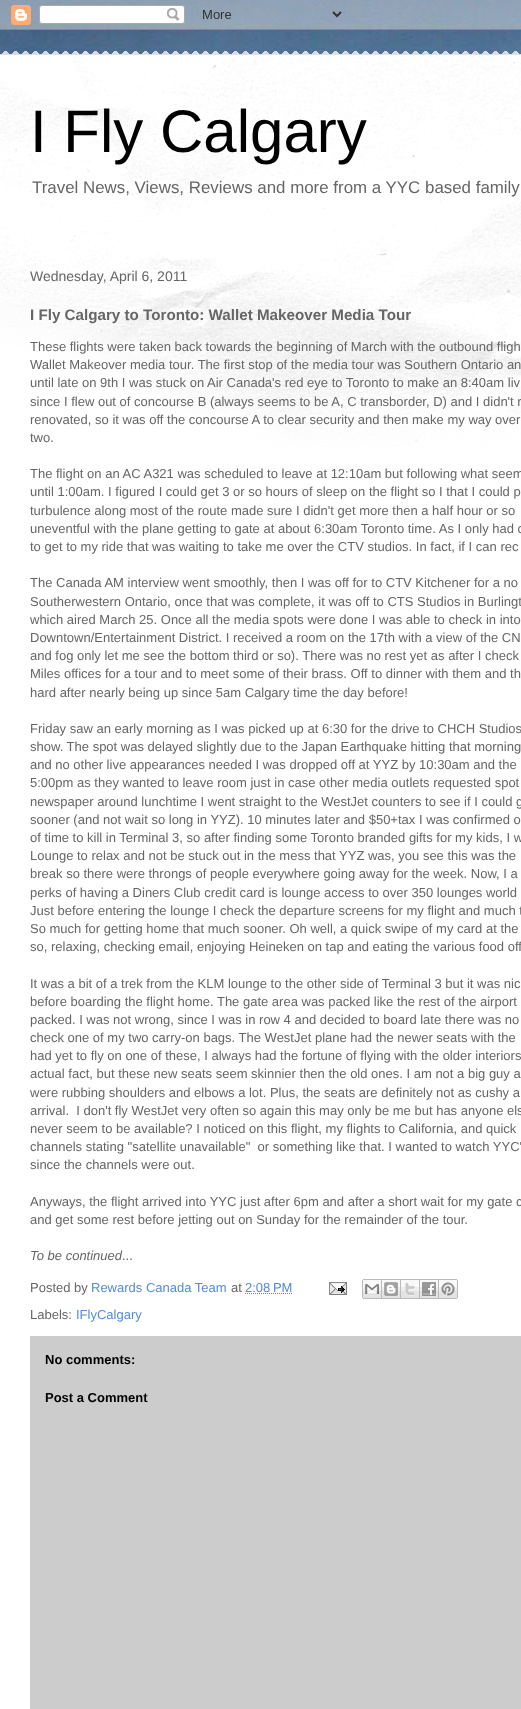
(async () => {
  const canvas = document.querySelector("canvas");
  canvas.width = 521;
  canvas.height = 1709;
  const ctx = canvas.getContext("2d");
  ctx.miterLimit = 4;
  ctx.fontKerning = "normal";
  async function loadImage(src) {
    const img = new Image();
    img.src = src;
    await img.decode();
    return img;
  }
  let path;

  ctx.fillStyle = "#ffffff";
  ctx.fillRect(0, 0, 521, 1709);
  ctx.drawImage(await loadImage("img/1.png"), 0, 0, 521, 55);
  ctx.drawImage(await loadImage("img/2.png"), 0, 0, 521, 30);
  ctx.drawImage(await loadImage("img/3.png"), 0, 51, 521, 4);
  ctx.drawImage(await loadImage("img/4.png"), 0, 55, 521, 392);
  path = new Path2D("M245 1293.5H292.5");
  ctx.strokeStyle = "#538cd6";
  ctx.setLineDash([1, 1]);
  ctx.stroke(path);
  ctx.drawImage(await loadImage("img/5.png"), 329, 1282, 18, 13);
  ctx.drawImage(await loadImage("img/6.png"), 362, 1279, 20, 20);
  ctx.drawImage(await loadImage("img/7.png"), 382, 1279, 19, 20);
  ctx.drawImage(await loadImage("img/8.png"), 401, 1279, 19, 20);
  ctx.drawImage(await loadImage("img/9.png"), 420, 1279, 19, 20);
  ctx.drawImage(await loadImage("img/10.png"), 439, 1279, 19, 20);
  ctx.fillStyle = "#cccccc";
  ctx.fillRect(30, 1336, 491, 373);
  ctx.font = "60px Liberation Sans";
  ctx.fillStyle = "#000000";
  ctx.fillText("I Fly Calgary", 30, 152);
  ctx.font = "16.9px Liberation Sans";
  ctx.fillStyle = "#666666";
  ctx.fillText("Travel News, Views, Reviews and more from a YYC based family", 32, 193);
  ctx.font = "14px Liberation Sans";
  ctx.fillText("Wednesday, April 6, 2011", 30, 281);
  ctx.font = "bold 15.2px Liberation Sans";
  ctx.fillText("I Fly Calgary to Toronto: Wallet Makeover Media Tour", 30, 320);
  ctx.font = "13px Liberation Sans";
  for (const [text, x, y] of [
    ["These flights were taken back towards the beginning of March with the outbound fligh", 30, 351],
    ["Wallet Makeover media tour. The first stop of the media tour was Southern Ontario an", 30, 369],
    ["until late on 9th I was stuck on Air Canada's red eye to Toronto to make an 8:40am liv", 30, 387],
    ["since I flew out of concourse B (always seems to be A, C transborder, D) and I didn't r", 30, 406],
    ["renovated, so it was off the concourse A to clear security and then make my way over", 30, 424],
    ["two.", 30, 442],
    ["The flight on an AC A321 was scheduled to leave at 12:10am but following what seem", 30, 478],
    ["until 1:00am. I figured I could get 3 or so hours of sleep on the flight so I that I could p", 30, 496],
    ["turbulence along most of the route made sure I didn't get more then a half hour or so", 30, 515],
    ["uneventful with the plane getting to gate at about 6:30am Toronto time. As I only had c", 30, 533],
    ["to get to my ride that was waiting to take me over the CTV studios. In fact, if I can rec", 30, 551],
    ["The Canada AM interview went smoothly, then I was off for to CTV Kitchener for a no", 30, 587],
    ["Southerwestern Ontario, once that was complete, it was off to CTS Studios in Burlingt", 30, 606],
    ["which aired March 25. Once all the media spots were done I was able to check in into", 30, 624],
    ["Downtown/Entertainment District. I received a room on the 17th with a view of the CN", 30, 642],
    ["and fog only let me see the bottom third or so). There was no rest yet as after I check", 30, 660],
    ["Miles offices for a tour and to meet some of their brass. Off to dinner with them and th", 30, 678],
    ["hard after nearly being up since 5am Calgary time the day before!", 30, 697],
    ["Friday saw an early morning as I was picked up at 6:30 for the drive to CHCH Studios", 30, 733],
    ["show. The spot was delayed slightly due to the Japan Earthquake hitting that morning", 30, 751],
    ["and no other live appearances needed I was dropped off at YYZ by 10:30am and the", 30, 769],
    ["5:00pm as they wanted to leave room just in case other media outlets requested spot", 30, 787],
    ["newspaper around lunchtime I went straight to the WestJet counters to see if I could g", 30, 806],
    ["sooner (and not wait so long in YYZ). 10 minutes later and $50+tax I was confirmed o", 30, 824],
    ["of time to kill in Terminal 3, so after finding some Toronto branded gifts for my kids, I w", 30, 842],
    ["Lounge to relax and not be stuck out in the mess that YYZ was, you see this was the", 30, 860],
    ["break so there were throngs of people everywhere going away for the week. Now, I a", 30, 878],
    ["perks of having a Diners Club credit card is lounge access to over 350 lounges world", 30, 897],
    ["Just before entering the lounge I check the departure screens for my flight and much t", 30, 915],
    ["So much for getting home that much sooner. Oh well, a quick swipe of my card at the", 30, 933],
    ["so, relaxing, checking email, enjoying Heineken on tap and eating the various food off", 30, 951],
    ["It was a bit of a trek from the KLM lounge to the other side of Terminal 3 but it was nic", 30, 988],
    ["before boarding the flight home. The gate area was packed like the rest of the airport", 30, 1006],
    ["packed. I was not wrong, since I was in row 4 and decided to board late there was no", 30, 1024],
    ["check one of my two carry-on bags. The WestJet plane had the newer seats with the", 30, 1042],
    ["had yet to fly on one of these, I always had the fortune of flying with the older interiors", 30, 1060],
    ["actual fact, but these new seats seem skinnier then the old ones. I am not a big guy a", 30, 1078],
    ["were rubbing shoulders and elbows a lot. Plus, the seats are definitely not as cushy a", 30, 1097],
    ["arrival.  I don't fly WestJet very often so again this may only be me but has anyone els", 30, 1115],
    ["never seem to be available? I noticed on this flight, my flights to California, and quick", 30, 1133],
    ["channels stating \"satellite unavailable\"  or something like that. I wanted to watch YYC'", 30, 1151],
    ["since the channels were out.", 30, 1169],
    ["Anyways, the flight arrived into YYC just after 6pm and after a short wait for my gate c", 30, 1206],
    ["and get some rest before jetting out on Sunday for the remainder of the tour.", 30, 1224],
  ]) {
    ctx.fillText(text, x, y);
  }
  ctx.font = "italic 13px Liberation Sans";
  ctx.fillText("To be continued", 30, 1260);
  ctx.font = "13px Liberation Sans";
  ctx.fillText("...", 122, 1260);
  ctx.fillText("Posted by", 30, 1292);
  ctx.fillStyle = "#538cd6";
  ctx.fillText("Rewards Canada Team", 91, 1292);
  ctx.fillStyle = "#666666";
  ctx.fillText("at", 231, 1292);
  ctx.fillStyle = "#538cd6";
  ctx.fillText("2:08 PM", 245, 1292);
  ctx.fillStyle = "#666666";
  ctx.fillText("Labels:", 30, 1319);
  ctx.fillStyle = "#538cd6";
  ctx.fillText("IFlyCalgary", 76, 1319);
  ctx.font = "bold 13px Liberation Sans";
  ctx.fillStyle = "#000000";
  ctx.fillText("No comments:", 45, 1364);
  ctx.fillText("Post a Comment", 45, 1402);
})();
